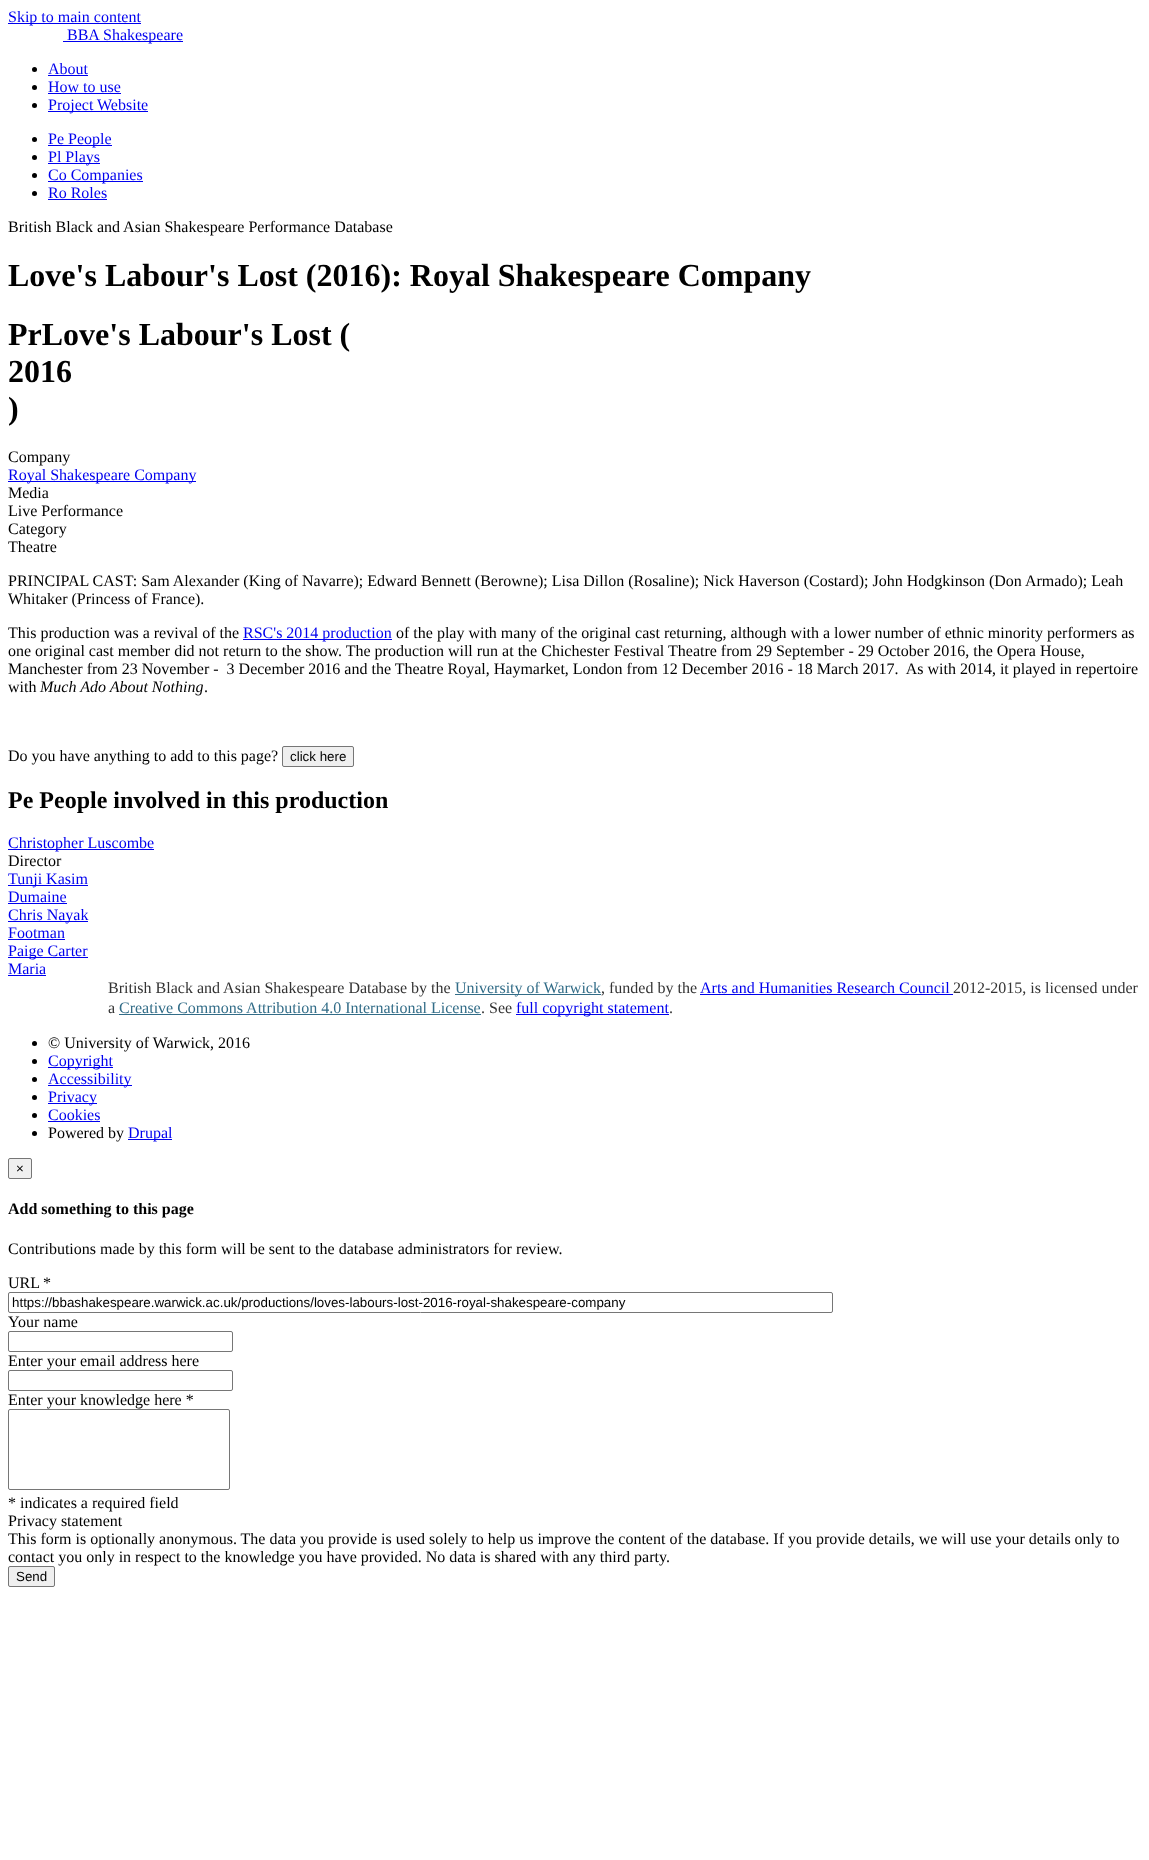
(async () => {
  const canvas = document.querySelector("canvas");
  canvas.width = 1149;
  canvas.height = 1860;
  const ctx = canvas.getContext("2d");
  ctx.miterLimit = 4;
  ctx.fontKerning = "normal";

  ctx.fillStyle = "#ffffff";
  ctx.fillRect(0, 0, 1149, 1860);
  ctx.fillStyle = "#0000ee";
  ctx.fillRect(8, 23, 133, 1);
  ctx.fillRect(63, 41, 120, 1);
  ctx.fillStyle = "#000000";
  ctx.beginPath();
  ctx.arc(34.5, 69.5, 2.5, 0, Math.PI * 2);
  ctx.fill();
  ctx.fillStyle = "#0000ee";
  ctx.fillRect(48, 75, 40, 1);
  ctx.fillStyle = "#000000";
  ctx.beginPath();
  ctx.arc(34.5, 87.5, 2.5, 0, Math.PI * 2);
  ctx.fill();
  ctx.fillStyle = "#0000ee";
  ctx.fillRect(48, 93, 73, 1);
  ctx.fillStyle = "#000000";
  ctx.beginPath();
  ctx.arc(34.5, 105.5, 2.5, 0, Math.PI * 2);
  ctx.fill();
  ctx.fillStyle = "#0000ee";
  ctx.fillRect(48, 111, 100, 1);
  ctx.fillStyle = "#000000";
  ctx.beginPath();
  ctx.arc(34.5, 139.5, 2.5, 0, Math.PI * 2);
  ctx.fill();
  ctx.fillStyle = "#0000ee";
  ctx.fillRect(48, 145, 64, 1);
  ctx.fillStyle = "#000000";
  ctx.beginPath();
  ctx.arc(34.5, 157.5, 2.5, 0, Math.PI * 2);
  ctx.fill();
  ctx.fillStyle = "#0000ee";
  ctx.fillRect(48, 163, 52, 1);
  ctx.fillStyle = "#000000";
  ctx.beginPath();
  ctx.arc(34.5, 175.5, 2.5, 0, Math.PI * 2);
  ctx.fill();
  ctx.fillStyle = "#0000ee";
  ctx.fillRect(48, 181, 95, 1);
  ctx.fillStyle = "#000000";
  ctx.beginPath();
  ctx.arc(34.5, 193.5, 2.5, 0, Math.PI * 2);
  ctx.fill();
  for (const [x, y, w, h, color] of [
    [48, 199, 59, 1, "#0000ee"],
    [8, 481, 188, 1, "#0000ee"],
    [243, 639, 149, 1, "#0000ee"],
  ]) {
    ctx.fillStyle = color;
    ctx.fillRect(x, y, w, h);
  }
  ctx.fillStyle = "#efefef";
  ctx.beginPath();
  ctx.roundRect(282.5, 746.5, 71, 20, 1.5);
  ctx.fill();
  ctx.strokeStyle = "#767676";
  ctx.stroke();
  for (const [x, y, w, h, color] of [
    [8, 849, 146, 1, "#0000ee"],
    [8, 885, 80, 1, "#0000ee"],
    [8, 903, 59, 1, "#0000ee"],
    [8, 921, 80, 1, "#0000ee"],
    [8, 939, 57, 1, "#0000ee"],
    [8, 957, 80, 1, "#0000ee"],
    [8, 975, 38, 1, "#0000ee"],
    [455, 994, 146, 1, "#336d88"],
    [700, 994, 253, 1, "#0000ee"],
    [119, 1014, 362, 1, "#336d88"],
    [516, 1014, 153, 1, "#0000ee"],
  ]) {
    ctx.fillStyle = color;
    ctx.fillRect(x, y, w, h);
  }
  ctx.fillStyle = "#000000";
  ctx.beginPath();
  ctx.arc(34.5, 1043.5, 2.5, 0, Math.PI * 2);
  ctx.fill();
  ctx.beginPath();
  ctx.arc(34.5, 1061.5, 2.5, 0, Math.PI * 2);
  ctx.fill();
  ctx.fillStyle = "#0000ee";
  ctx.fillRect(48, 1067, 65, 1);
  ctx.fillStyle = "#000000";
  ctx.beginPath();
  ctx.arc(34.5, 1079.5, 2.5, 0, Math.PI * 2);
  ctx.fill();
  ctx.fillStyle = "#0000ee";
  ctx.fillRect(48, 1085, 84, 1);
  ctx.fillStyle = "#000000";
  ctx.beginPath();
  ctx.arc(34.5, 1097.5, 2.5, 0, Math.PI * 2);
  ctx.fill();
  ctx.fillStyle = "#0000ee";
  ctx.fillRect(48, 1103, 49, 1);
  ctx.fillStyle = "#000000";
  ctx.beginPath();
  ctx.arc(34.5, 1115.5, 2.5, 0, Math.PI * 2);
  ctx.fill();
  ctx.fillStyle = "#0000ee";
  ctx.fillRect(48, 1121, 52, 1);
  ctx.fillStyle = "#000000";
  ctx.beginPath();
  ctx.arc(34.5, 1133.5, 2.5, 0, Math.PI * 2);
  ctx.fill();
  ctx.fillStyle = "#0000ee";
  ctx.fillRect(128, 1139, 44, 1);
  ctx.fillStyle = "#efefef";
  ctx.beginPath();
  ctx.roundRect(8.5, 1158.5, 23, 20, 1.5);
  ctx.fill();
  ctx.stroke();
  ctx.beginPath();
  ctx.roundRect(8.5, 1292.5, 824, 20, 1.5);
  ctx.stroke();
  ctx.beginPath();
  ctx.roundRect(8.5, 1331.5, 224, 20, 1.5);
  ctx.stroke();
  ctx.beginPath();
  ctx.roundRect(8.5, 1370.5, 224, 20, 1.5);
  ctx.stroke();
  ctx.beginPath();
  ctx.roundRect(8.5, 1409.5, 221, 80, 1.5);
  ctx.stroke();
  ctx.beginPath();
  ctx.roundRect(8.5, 1566.5, 46, 20, 1.5);
  ctx.fill();
  ctx.stroke();
  ctx.font = "16px Liberation Serif";
  ctx.fillStyle = "#0000ee";
  for (const [text, x, y] of [
    ["Skip to main content", 8, 22],
    ["BBA Shakespeare", 67, 40],
    ["About", 48, 74],
    ["How to use", 48, 92],
    ["Project Website", 48, 110],
    ["Pe People", 48, 144],
    ["Pl Plays", 48, 162],
    ["Co Companies", 48, 180],
    ["Ro Roles", 48, 198],
  ]) {
    ctx.fillText(text, x, y);
  }
  ctx.fillStyle = "#000000";
  ctx.fillText("British Black and Asian Shakespeare Performance Database", 8, 232);
  ctx.font = "bold 32px Liberation Serif";
  for (const [text, x, y] of [
    ["Love's Labour's Lost (2016): Royal Shakespeare Company", 8, 286],
    ["PrLove's Labour's Lost (", 8, 345],
    ["2016", 8, 382],
    [")", 8, 419],
  ]) {
    ctx.fillText(text, x, y);
  }
  ctx.font = "16px Liberation Serif";
  ctx.fillText("Company", 8, 462);
  ctx.fillStyle = "#0000ee";
  ctx.fillText("Royal Shakespeare Company", 8, 480);
  ctx.fillStyle = "#000000";
  for (const [text, x, y] of [
    ["Media", 8, 498],
    ["Live Performance", 8, 516],
    ["Category", 8, 534],
    ["Theatre", 8, 552],
    ["PRINCIPAL CAST: Sam Alexander (King of Navarre); Edward Bennett (Berowne); Lisa Dillon (Rosaline); Nick Haverson (Costard); John Hodgkinson (Don Armado); Leah", 8, 586],
    ["Whitaker (Princess of France).", 8, 604],
    ["This production was a revival of the", 8, 638],
  ]) {
    ctx.fillText(text, x, y);
  }
  ctx.fillStyle = "#0000ee";
  ctx.fillText("RSC's 2014 production", 243, 638);
  ctx.fillStyle = "#000000";
  for (const [text, x, y] of [
    ["of the play with many of the original cast returning, although with a lower number of ethnic minority performers as", 396, 638],
    ["one original cast member did not return to the show. The production will run at the Chichester Festival Theatre from 29 September - 29 October 2016, the Opera House,", 8, 656],
    ["Manchester from 23 November -  3 December 2016 and the Theatre Royal, Haymarket, London from 12 December 2016 - 18 March 2017.  As with 2014, it played in repertoire", 8, 674],
    ["with", 8, 692],
  ]) {
    ctx.fillText(text, x, y);
  }
  ctx.font = "italic 16px Liberation Serif";
  ctx.fillText("Much Ado About Nothing", 40, 692);
  ctx.font = "16px Liberation Serif";
  ctx.fillText(".", 204, 692);
  ctx.fillText("Do you have anything to add to this page?", 8, 761);
  ctx.font = "13.35px Liberation Sans";
  ctx.fillText("click here", 290, 761);
  ctx.font = "bold 24px Liberation Serif";
  ctx.fillText("Pe People involved in this production", 8, 808);
  ctx.font = "16px Liberation Serif";
  ctx.fillStyle = "#0000ee";
  ctx.fillText("Christopher Luscombe", 8, 848);
  ctx.fillStyle = "#000000";
  ctx.fillText("Director", 8, 866);
  ctx.fillStyle = "#0000ee";
  for (const [text, x, y] of [
    ["Tunji Kasim", 8, 884],
    ["Dumaine", 8, 902],
    ["Chris Nayak", 8, 920],
    ["Footman", 8, 938],
    ["Paige Carter", 8, 956],
    ["Maria", 8, 974],
  ]) {
    ctx.fillText(text, x, y);
  }
  ctx.fillStyle = "#333333";
  ctx.fillText("British Black and Asian Shakespeare Database by the", 108, 993);
  ctx.fillStyle = "#336d88";
  ctx.fillText("University of Warwick", 455, 993);
  ctx.fillStyle = "#333333";
  ctx.fillText(", funded by the", 601, 993);
  ctx.fillStyle = "#0000ee";
  ctx.fillText("Arts and Humanities Research Council", 700, 993);
  ctx.fillStyle = "#333333";
  ctx.fillText("2012-2015, is licensed under", 953, 993);
  ctx.fillText("a", 108, 1013);
  ctx.fillStyle = "#336d88";
  ctx.fillText("Creative Commons Attribution 4.0 International License", 119, 1013);
  ctx.fillStyle = "#333333";
  ctx.fillText(". See", 481, 1013);
  ctx.fillStyle = "#0000ee";
  ctx.fillText("full copyright statement", 516, 1013);
  ctx.fillStyle = "#333333";
  ctx.fillText(".", 669, 1013);
  ctx.fillStyle = "#000000";
  ctx.fillText("© University of Warwick, 2016", 48, 1048);
  ctx.fillStyle = "#0000ee";
  for (const [text, x, y] of [
    ["Copyright", 48, 1066],
    ["Accessibility", 48, 1084],
    ["Privacy", 48, 1102],
    ["Cookies", 48, 1120],
  ]) {
    ctx.fillText(text, x, y);
  }
  ctx.fillStyle = "#000000";
  ctx.fillText("Powered by", 48, 1138);
  ctx.fillStyle = "#0000ee";
  ctx.fillText("Drupal", 128, 1138);
  ctx.font = "13.35px Liberation Sans";
  ctx.fillStyle = "#000000";
  ctx.fillText("×", 16, 1173);
  ctx.font = "bold 16px Liberation Serif";
  ctx.fillText("Add something to this page", 8, 1214);
  ctx.font = "16px Liberation Serif";
  for (const [text, x, y] of [
    ["Contributions made by this form will be sent to the database administrators for review.", 8, 1254],
    ["URL", 8, 1288],
    ["*", 43, 1288],
  ]) {
    ctx.fillText(text, x, y);
  }
  ctx.font = "13.35px Liberation Sans";
  ctx.fillText("https://bbashakespeare.warwick.ac.uk/productions/loves-labours-lost-2016-royal-shakespeare-company", 12, 1307);
  ctx.font = "16px Liberation Serif";
  for (const [text, x, y] of [
    ["Your name", 8, 1327],
    ["Enter your email address here", 8, 1366],
    ["Enter your knowledge here *", 8, 1405],
    ["* indicates a required field", 8, 1508],
    ["Privacy statement", 8, 1526],
    ["This form is optionally anonymous. The data you provide is used solely to help us improve the content of the database. If you provide details, we will use your details only to", 8, 1544],
    ["contact you only in respect to the knowledge you have provided. No data is shared with any third party.", 8, 1562],
  ]) {
    ctx.fillText(text, x, y);
  }
  ctx.font = "13.35px Liberation Sans";
  ctx.fillText("Send", 16, 1581);
})();
